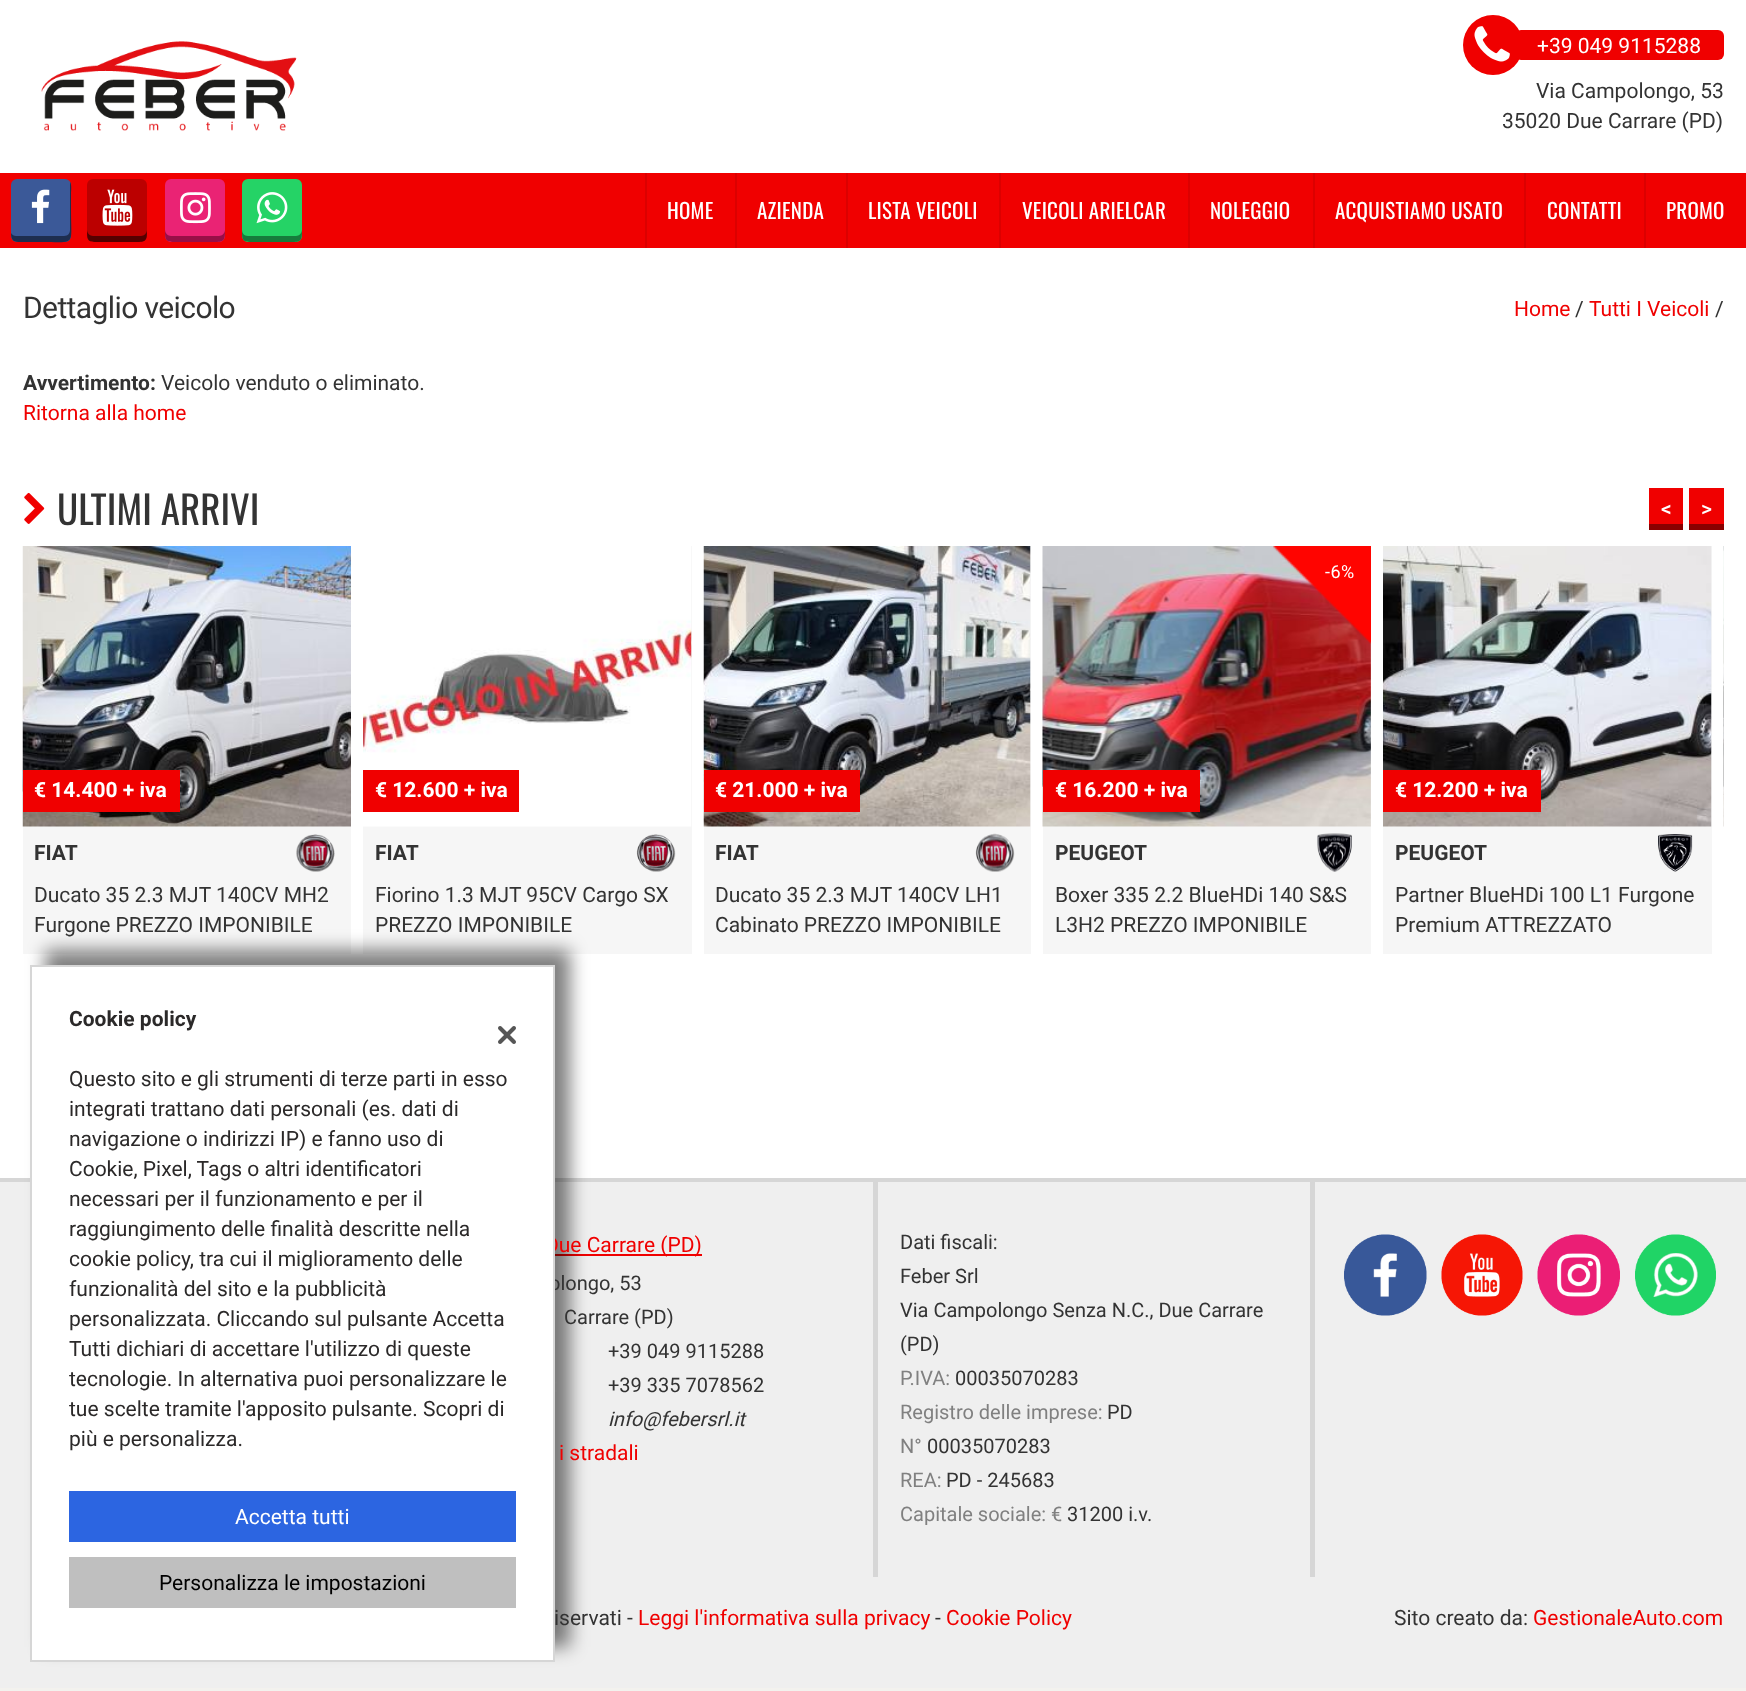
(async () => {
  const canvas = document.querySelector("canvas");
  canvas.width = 1746;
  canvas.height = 1691;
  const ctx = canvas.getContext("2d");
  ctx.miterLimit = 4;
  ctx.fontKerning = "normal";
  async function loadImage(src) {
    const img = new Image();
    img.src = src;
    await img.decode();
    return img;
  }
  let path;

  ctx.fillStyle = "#f3f2ee";
  ctx.fillRect(0, 0, 1746, 1691);
  ctx.fillStyle = "#ffffff";
  ctx.fillRect(0, 0, 1746, 1178);
  ctx.drawImage(await loadImage("img/1.png"), 41, 41, 256, 90);
  ctx.fillStyle = "#f00000";
  ctx.beginPath();
  ctx.arc(1493, 45, 30, 0, Math.PI * 2);
  ctx.fill();
  ctx.drawImage(await loadImage("img/2.png"), 1474, 26, 36, 36);
  ctx.beginPath();
  ctx.roundRect(1515, 30, 209, 30, 6);
  ctx.fill();
  ctx.fillRect(0, 173, 1746, 75);
  ctx.fillStyle = "#3b5998";
  ctx.beginPath();
  ctx.roundRect(11, 179, 60, 63, 6);
  ctx.fill();
  ctx.fillStyle = "#1e2e4f";
  path = new Path2D("M11 233C11 243 16 242 25 242H41C77 242 71 247 71 210V194C71 191 72 185 70 182V230C70 233 68 236 64 236H16C14 236 12 235 11 233Z");
  ctx.fill(path);
  ctx.drawImage(await loadImage("img/3.png"), 31, 189, 19, 35);
  ctx.fillStyle = "#bb0000";
  ctx.beginPath();
  ctx.roundRect(87, 179, 60, 63, 6);
  ctx.fill();
  ctx.fillStyle = "#550000";
  path = new Path2D("M87 230C87 242 88 242 101 242H133C146 242 147 242 147 230C147 233 144 236 141 236H93C90 236 87 233 87 230Z");
  ctx.fill(path);
  ctx.drawImage(await loadImage("img/4.png"), 102, 189, 31, 37);
  ctx.fillStyle = "#ea2374";
  ctx.beginPath();
  ctx.roundRect(165, 179, 60, 63, 6);
  ctx.fill();
  ctx.fillStyle = "#980f47";
  path = new Path2D("M165 230C165 242 166 242 179 242H211C224 242 225 242 225 230C225 233 222 236 219 236H171C168 236 165 233 165 230Z");
  ctx.fill(path);
  ctx.drawImage(await loadImage("img/5.png"), 180, 192, 31, 32);
  ctx.fillStyle = "#25d366";
  ctx.beginPath();
  ctx.roundRect(242, 179, 60, 63, 6);
  ctx.fill();
  ctx.fillStyle = "#167c3c";
  path = new Path2D("M242 230C242 242 243 242 256 242H288C301 242 302 242 302 230C302 233 299 236 296 236H248C244 236 242 233 242 230Z");
  ctx.fill(path);
  ctx.drawImage(await loadImage("img/6.png"), 256, 192, 32, 32);
  for (const [x, y, w, h, color] of [
    [645, 173, 2, 75, "#dc0000"],
    [735, 173, 2, 75, "#dc0000"],
    [846, 173, 2, 75, "#dc0000"],
    [999, 173, 2, 75, "#dc0000"],
    [1188, 173, 2, 75, "#dc0000"],
    [1313, 173, 2, 75, "#dc0000"],
    [1524, 173, 2, 75, "#dc0000"],
    [1644, 173, 2, 75, "#dc0000"],
  ]) {
    ctx.fillStyle = color;
    ctx.fillRect(x, y, w, h);
  }
  ctx.drawImage(await loadImage("img/7.png"), 24, 492, 21, 32);
  for (const [x, y, w, h, color] of [
    [1649, 488, 34, 36, "#f00000"],
    [1649, 524, 34, 6, "#8a0000"],
    [1689, 488, 35, 36, "#f00000"],
    [1689, 524, 35, 6, "#8a0000"],
    [23, 826, 328, 128, "#f6f6f6"],
  ]) {
    ctx.fillStyle = color;
    ctx.fillRect(x, y, w, h);
  }
  ctx.drawImage(await loadImage("img/8.png"), 22, 546, 329, 281);
  ctx.fillStyle = "#f00000";
  ctx.fillRect(23, 770, 157, 42);
  ctx.drawImage(await loadImage("img/9.png"), 296, 834, 39, 38);
  ctx.fillStyle = "#f6f6f6";
  ctx.fillRect(363, 546, 329, 408);
  ctx.drawImage(await loadImage("img/10.png"), 363, 546, 329, 281);
  ctx.fillStyle = "#f00000";
  ctx.fillRect(363, 770, 156, 42);
  ctx.drawImage(await loadImage("img/11.png"), 636, 834, 40, 38);
  ctx.fillStyle = "#f6f6f6";
  ctx.fillRect(704, 546, 327, 408);
  ctx.drawImage(await loadImage("img/12.png"), 703, 546, 328, 281);
  ctx.fillStyle = "#f00000";
  ctx.fillRect(704, 770, 156, 42);
  ctx.drawImage(await loadImage("img/13.png"), 975, 833, 40, 39);
  ctx.fillStyle = "#f6f6f6";
  ctx.fillRect(1043, 640, 328, 314);
  ctx.drawImage(await loadImage("img/15.png"), 1042, 546, 329, 281);
  ctx.drawImage(await loadImage("img/14.png"), 1273, 546, 98, 98);
  ctx.fillStyle = "#f00000";
  ctx.fillRect(1043, 770, 157, 42);
  ctx.drawImage(await loadImage("img/16.png"), 1317, 833, 35, 39);
  ctx.fillStyle = "#f6f6f6";
  ctx.fillRect(1383, 546, 329, 408);
  ctx.drawImage(await loadImage("img/17.png"), 1383, 546, 329, 281);
  ctx.fillStyle = "#f00000";
  ctx.fillRect(1383, 770, 158, 42);
  ctx.drawImage(await loadImage("img/18.png"), 1658, 834, 35, 38);
  ctx.drawImage(await loadImage("img/19.png"), 1723, 546, 1, 281);
  for (const [x, y, w, h, color] of [
    [0, 1178, 1746, 4, "#d6d6d6"],
    [0, 1182, 1746, 506, "#efefef"],
    [555, 1254, 147, 2, "#f00000"],
  ]) {
    ctx.fillStyle = color;
    ctx.fillRect(x, y, w, h);
  }
  ctx.fillStyle = "rgba(0, 0, 0, 0.5)";
  ctx.filter = "blur(9px)";
  ctx.beginPath();
  ctx.rect(45, 950, 525, 697);
  ctx.fill();
  ctx.filter = "none";
  ctx.fillStyle = "#d6d6d6";
  ctx.fillRect(873, 1182, 5, 395);
  ctx.fillRect(1310, 1182, 5, 395);
  ctx.drawImage(await loadImage("img/21.png"), 1344, 1234, 83, 82);
  ctx.drawImage(await loadImage("img/22.png"), 1441, 1234, 82, 82);
  ctx.drawImage(await loadImage("img/23.png"), 1537, 1234, 83, 82);
  ctx.drawImage(await loadImage("img/24.png"), 1635, 1234, 81, 82);
  ctx.font = "21px Roboto";
  ctx.fillStyle = "#ffffff";
  ctx.fillText("+39 049 9115288", 1537, 53);
  ctx.fillStyle = "#333333";
  ctx.fillText("Via Campolongo, 53", 1536, 98);
  ctx.fillText("35020 Due Carrare (PD)", 1502, 128);
  ctx.letterSpacing = "0.25px";
  ctx.font = "21px Oswald";
  ctx.fillStyle = "#ffffff";
  for (const [text, x, y] of [
    ["HOME", 667, 219],
    ["AZIENDA", 757, 219],
    ["LISTA VEICOLI", 868, 219],
    ["VEICOLI ARIELCAR", 1022, 219],
    ["NOLEGGIO", 1210, 219],
    ["ACQUISTIAMO USATO", 1335, 219],
    ["CONTATTI", 1547, 219],
    ["PROMO", 1666, 219],
  ]) {
    ctx.fillText(text, x, y);
  }
  ctx.letterSpacing = "-0.6px";
  ctx.font = "30px Roboto";
  ctx.fillStyle = "#333333";
  ctx.fillText("Dettaglio veicolo", 23, 318);
  ctx.letterSpacing = "0px";
  ctx.font = "21px Roboto";
  ctx.fillStyle = "#f00000";
  ctx.fillText("Home", 1514, 316);
  ctx.fillStyle = "#333333";
  ctx.fillText("/", 1575, 316);
  ctx.fillStyle = "#f00000";
  ctx.fillText("Tutti I Veicoli", 1589, 316);
  ctx.fillStyle = "#333333";
  ctx.fillText("/", 1715, 316);
  ctx.font = "bold 21px Roboto";
  ctx.fillText("Avvertimento:", 23, 390);
  ctx.font = "21px Roboto";
  ctx.fillText("Veicolo venduto o eliminato.", 161, 390);
  ctx.fillStyle = "#f00000";
  ctx.fillText("Ritorna alla home", 23, 420);
  ctx.font = "39px Oswald";
  ctx.fillStyle = "#333333";
  ctx.fillText("ULTIMI ARRIVI", 57, 525);
  ctx.font = "500 21px Roboto";
  ctx.fillStyle = "#ffffff";
  ctx.fillText("<", 1661, 516);
  ctx.fillText(">", 1701, 516);
  ctx.font = "bold 21px Roboto";
  ctx.fillText("€ 14.400 + iva", 34, 797);
  ctx.fillStyle = "#333333";
  ctx.fillText("FIAT", 34, 860);
  ctx.font = "21px Roboto";
  ctx.fillText("Ducato 35 2.3 MJT 140CV MH2", 34, 902);
  ctx.fillText("Furgone PREZZO IMPONIBILE", 34, 932);
  ctx.font = "bold 21px Roboto";
  ctx.fillStyle = "#ffffff";
  ctx.fillText("€ 12.600 + iva", 375, 797);
  ctx.fillStyle = "#333333";
  ctx.fillText("FIAT", 375, 860);
  ctx.font = "21px Roboto";
  ctx.fillText("Fiorino 1.3 MJT 95CV Cargo SX", 375, 902);
  ctx.fillText("PREZZO IMPONIBILE", 375, 932);
  ctx.font = "bold 21px Roboto";
  ctx.fillStyle = "#ffffff";
  ctx.fillText("€ 21.000 + iva", 715, 797);
  ctx.fillStyle = "#333333";
  ctx.fillText("FIAT", 715, 860);
  ctx.font = "21px Roboto";
  ctx.fillText("Ducato 35 2.3 MJT 140CV LH1", 715, 902);
  ctx.fillText("Cabinato PREZZO IMPONIBILE", 715, 932);
  ctx.letterSpacing = "0.5px";
  ctx.font = "18px Roboto";
  ctx.fillStyle = "#ffffff";
  ctx.fillText("-6%", 1325, 578);
  ctx.letterSpacing = "0px";
  ctx.font = "bold 21px Roboto";
  ctx.fillText("€ 16.200 + iva", 1055, 797);
  ctx.fillStyle = "#333333";
  ctx.fillText("PEUGEOT", 1055, 860);
  ctx.font = "21px Roboto";
  ctx.fillText("Boxer 335 2.2 BlueHDi 140 S&S", 1055, 902);
  ctx.fillText("L3H2 PREZZO IMPONIBILE", 1055, 932);
  ctx.font = "bold 21px Roboto";
  ctx.fillStyle = "#ffffff";
  ctx.fillText("€ 12.200 + iva", 1395, 797);
  ctx.fillStyle = "#333333";
  ctx.fillText("PEUGEOT", 1395, 860);
  ctx.font = "21px Roboto";
  ctx.fillText("Partner BlueHDi 100 L1 Furgone", 1395, 902);
  ctx.fillText("Premium ATTREZZATO", 1395, 932);
  ctx.fillStyle = "#f00000";
  ctx.fillText("Due Carrare (PD)", 545, 1252);
  ctx.font = "20px Roboto";
  ctx.fillStyle = "#333333";
  ctx.fillText("olongo, 53", 549, 1290);
  ctx.fillStyle = "#ffffff";
  ctx.beginPath();
  ctx.rect(31, 966, 523, 695);
  ctx.fill();
  ctx.strokeStyle = "#d6d6d6";
  ctx.lineWidth = 2;
  ctx.stroke();
  ctx.drawImage(await loadImage("img/20.png"), 498, 1026, 18, 18);
  ctx.fillStyle = "#bfbfbf";
  ctx.fillRect(69, 1557, 447, 51);
  ctx.font = "21px Roboto";
  ctx.fillStyle = "#000000";
  ctx.fillText("Personalizza le impostazioni", 159, 1590);
  ctx.fillStyle = "#2c65e1";
  ctx.fillRect(69, 1491, 447, 51);
  ctx.fillStyle = "#ffffff";
  ctx.fillText("Accetta tutti", 235, 1524);
  ctx.fillStyle = "#2b2929";
  for (const [text, x, y] of [
    ["più e personalizza.", 69, 1446],
    ["tue scelte tramite l'apposito pulsante. Scopri di", 69, 1416],
    ["tecnologie. In alternativa puoi personalizzare le", 69, 1386],
    ["Tutti dichiari di accettare l'utilizzo di queste", 69, 1356],
    ["personalizzata. Cliccando sul pulsante Accetta", 69, 1326],
    ["funzionalità del sito e la pubblicità", 69, 1296],
    ["cookie policy, tra cui il miglioramento delle", 69, 1266],
    ["raggiungimento delle finalità descritte nella", 69, 1236],
    ["necessari per il funzionamento e per il", 69, 1206],
    ["Cookie, Pixel, Tags o altri identificatori", 69, 1176],
    ["navigazione o indirizzi IP) e fanno uso di", 69, 1146],
    ["integrati trattano dati personali (es. dati di", 69, 1116],
    ["Questo sito e gli strumenti di terze parti in esso", 69, 1086],
  ]) {
    ctx.fillText(text, x, y);
  }
  ctx.font = "bold 21px Roboto";
  ctx.fillText("Cookie policy", 69, 1026);
  ctx.font = "20px Roboto";
  ctx.fillStyle = "#333333";
  ctx.fillText("Carrare (PD)", 564, 1324);
  ctx.fillText("+39 049 9115288", 608, 1358);
  ctx.fillStyle = "#808080";
  ctx.fillText(":", 554, 1392);
  ctx.fillStyle = "#333333";
  ctx.fillText("+39 335 7078562", 608, 1392);
  ctx.font = "italic 20px Roboto";
  ctx.fillText("info@febersrl.it", 608, 1426);
  ctx.font = "21px Roboto";
  ctx.fillStyle = "#f00000";
  ctx.fillText("i stradali", 559, 1460);
  ctx.font = "20px Roboto";
  ctx.fillStyle = "#333333";
  for (const [text, x, y] of [
    ["Dati fiscali:", 900, 1249],
    ["Feber Srl", 900, 1283],
    ["Via Campolongo Senza N.C., Due Carrare", 900, 1317],
    ["(PD)", 900, 1351],
  ]) {
    ctx.fillText(text, x, y);
  }
  ctx.fillStyle = "#808080";
  ctx.fillText("P.IVA:", 900, 1385);
  ctx.fillStyle = "#333333";
  ctx.fillText("00035070283", 955, 1385);
  ctx.fillStyle = "#808080";
  ctx.fillText("Registro delle imprese:", 900, 1419);
  ctx.fillStyle = "#333333";
  ctx.fillText("PD", 1107, 1419);
  ctx.fillStyle = "#808080";
  ctx.fillText("N°", 900, 1453);
  ctx.fillStyle = "#333333";
  ctx.fillText("00035070283", 927, 1453);
  ctx.fillStyle = "#808080";
  ctx.fillText("REA:", 900, 1487);
  ctx.fillStyle = "#333333";
  ctx.fillText("PD - 245683", 946, 1487);
  ctx.fillStyle = "#808080";
  ctx.fillText("Capitale sociale: €", 900, 1521);
  ctx.fillStyle = "#333333";
  ctx.fillText("31200 i.v.", 1067, 1521);
  ctx.font = "21px Roboto";
  ctx.fillText("iservati -", 554, 1625);
  ctx.fillStyle = "#f00000";
  ctx.fillText("Leggi l'informativa sulla privacy", 638, 1625);
  ctx.fillStyle = "#333333";
  ctx.fillText("-", 935, 1625);
  ctx.fillStyle = "#f00000";
  ctx.fillText("Cookie Policy", 946, 1625);
  ctx.fillStyle = "#333333";
  ctx.fillText("Sito creato da:", 1394, 1625);
  ctx.fillStyle = "#f00000";
  ctx.fillText("GestionaleAuto.com", 1533, 1625);
})();
